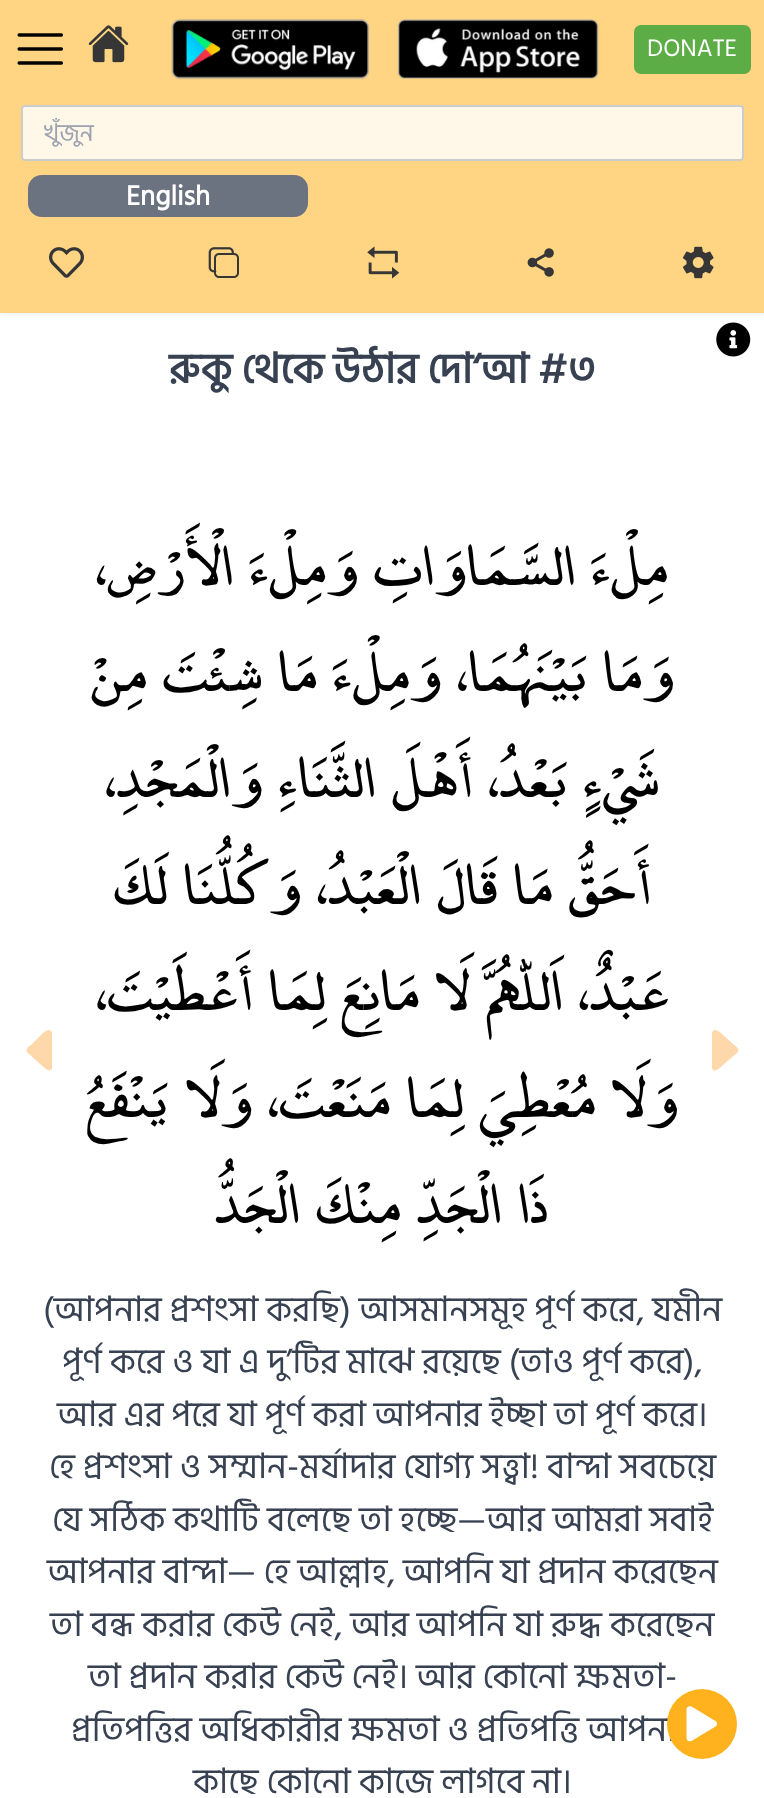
(async () => {
  const canvas = document.querySelector("canvas");
  canvas.width = 764;
  canvas.height = 1798;
  const ctx = canvas.getContext("2d");
  ctx.miterLimit = 4;
  ctx.fontKerning = "normal";
  async function loadImage(src) {
    const img = new Image();
    img.src = src;
    await img.decode();
    return img;
  }
  let path;

  ctx.fillStyle = "#ffffff";
  ctx.fillRect(0, 0, 764, 1798);
  ctx.fillStyle = "rgba(0, 0, 0, 0.05)";
  ctx.filter = "blur(2px)";
  ctx.beginPath();
  ctx.rect(0, 2, 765, 313);
  ctx.fill();
  ctx.filter = "none";
  ctx.fillStyle = "#ffd583";
  ctx.fillRect(0, 0, 764, 313);
  ctx.drawImage(await loadImage("img/1.png"), 17, 33, 46, 32);
  ctx.drawImage(await loadImage("img/2.png"), 88, 25, 41, 38);
  ctx.drawImage(await loadImage("img/3.png"), 171, 19, 199, 61);
  ctx.drawImage(await loadImage("img/4.png"), 397, 19, 202, 60);
  ctx.fillStyle = "#5dad47";
  ctx.beginPath();
  ctx.roundRect(634, 25, 117, 49, 7);
  ctx.fill();
  ctx.fillStyle = "#fff8e9";
  ctx.beginPath();
  ctx.roundRect(22, 106, 721, 54, 3);
  ctx.fill();
  ctx.strokeStyle = "#cccccc";
  ctx.lineWidth = 2;
  ctx.stroke();
  ctx.fillStyle = "#6b7280";
  ctx.beginPath();
  ctx.roundRect(28, 175, 280, 42, 14);
  ctx.fill();
  ctx.drawImage(await loadImage("img/5.png"), 49, 247, 35, 31);
  ctx.drawImage(await loadImage("img/6.png"), 208, 247, 31, 31);
  ctx.drawImage(await loadImage("img/7.png"), 367, 246, 33, 33);
  ctx.drawImage(await loadImage("img/8.png"), 527, 248, 27, 29);
  ctx.drawImage(await loadImage("img/9.png"), 683, 246, 31, 33);
  ctx.drawImage(await loadImage("img/10.png"), 716, 322, 35, 35);
  ctx.fillStyle = "#fed7aa";
  path = new Path2D("M28 1053L40 1064C42 1065 50 1075 52 1068V1033L51 1031C48 1028 45 1032 43 1033L31 1045C29 1046 24 1050 28 1053Z");
  ctx.fill(path);
  path = new Path2D("M737 1053L724 1064C723 1065 714 1075 712 1068V1033L713 1031C716 1028 719 1032 721 1033L734 1045C736 1046 741 1050 737 1053Z");
  ctx.fill(path);
  ctx.font = "24.5px Hind Siliguri";
  ctx.fillStyle = "#ffffff";
  ctx.fillText("DONATE", 647, 56);
  ctx.save();
  ctx.beginPath();
  ctx.rect(44, 114, 677, 40);
  ctx.clip();
  ctx.fillStyle = "#9ca3af";
  ctx.fillText("খুঁজুন", 44, 141);
  ctx.restore();
  ctx.font = "bold 28px Hind Siliguri";
  ctx.fillText("English", 126, 205);
  ctx.font = "bold 42px Hind Siliguri";
  ctx.fillStyle = "#374151";
  ctx.fillText("রুকু থেকে উঠার দো‘আ #৩", 169, 383);
  ctx.direction = "rtl";
  ctx.font = "53.25px 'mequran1'";
  ctx.fillStyle = "#000000";
  for (const [text, x, y] of [
    ["مِلْءَ السَّمَاوَاتِ وَمِلْءَ الْأَرْضِ،", 668, 585],
    ["وَمَا بَيْنَهُمَا، وَمِلْءَ مَا شِئْتَ مِنْ", 674, 691],
    ["شَيْءٍ بَعْدُ، أَهْلَ الثَّنَاءِ وَالْمَجْدِ،", 659, 797],
    ["أَحَقُّ مَا قَالَ الْعَبْدُ، وَكُلُّنَا لَكَ", 651, 904],
    ["عَبْدٌ، اَللّٰهُمَّ لَا مَانِعَ لِمَا أَعْطَيْتَ،", 669, 1010],
    ["وَلَا مُعْطِيَ لِمَا مَنَعْتَ، وَلَا يَنْفَعُ", 678, 1117],
    ["ذَا الْجَدِّ مِنْكَ الْجَدُّ", 549, 1223],
  ]) {
    ctx.fillText(text, x, y);
  }
  ctx.direction = "ltr";
  ctx.font = "35px Hind Siliguri";
  ctx.fillStyle = "#374151";
  for (const [text, x, y] of [
    ["(আপনার প্রশংসা করছি) আসমানসমূহ পূর্ণ করে, যমীন", 43, 1321],
    ["পূর্ণ করে ও যা এ দু’টির মাঝে রয়েছে (তাও পূর্ণ করে),", 62, 1373],
    ["আর এর পরে যা পূর্ণ করা আপনার ইচ্ছা তা পূর্ণ করে।", 57, 1426],
    ["হে প্রশংসা ও সম্মান-মর্যাদার যোগ্য সত্ত্বা! বান্দা সবচেয়ে", 49, 1478],
    ["যে সঠিক কথাটি বলেছে তা হচ্ছে—আর আমরা সবাই", 52, 1531],
    ["আপনার বান্দা— হে আল্লাহ, আপনি যা প্রদান করেছেন", 47, 1583],
    ["তা বন্ধ করার কেউ নেই, আর আপনি যা রুদ্ধ করেছেন", 50, 1636],
    ["তা প্রদান করার কেউ নেই। আর কোনো ক্ষমতা-", 88, 1688],
    ["প্রতিপত্তির অধিকারীর ক্ষমতা ও প্রতিপত্তি আপনা", 71, 1741],
    ["কাছে কোনো কাজে লাগবে না।", 193, 1793],
  ]) {
    ctx.fillText(text, x, y);
  }
  ctx.fillStyle = "#ffb21d";
  ctx.beginPath();
  ctx.arc(702, 1724, 35, 0, Math.PI * 2);
  ctx.fill();
  ctx.fillStyle = "#ffffff";
  path = new Path2D("M715.5 1721L691.5 1706.5C689.5 1705.5 686.5 1706.5 686.5 1709.5V1738C686.5 1740.5 689 1742 691.5 1741L715.5 1726.5C717.5 1725.5 717.5 1722 715.5 1721Z");
  ctx.fill(path);
})();
